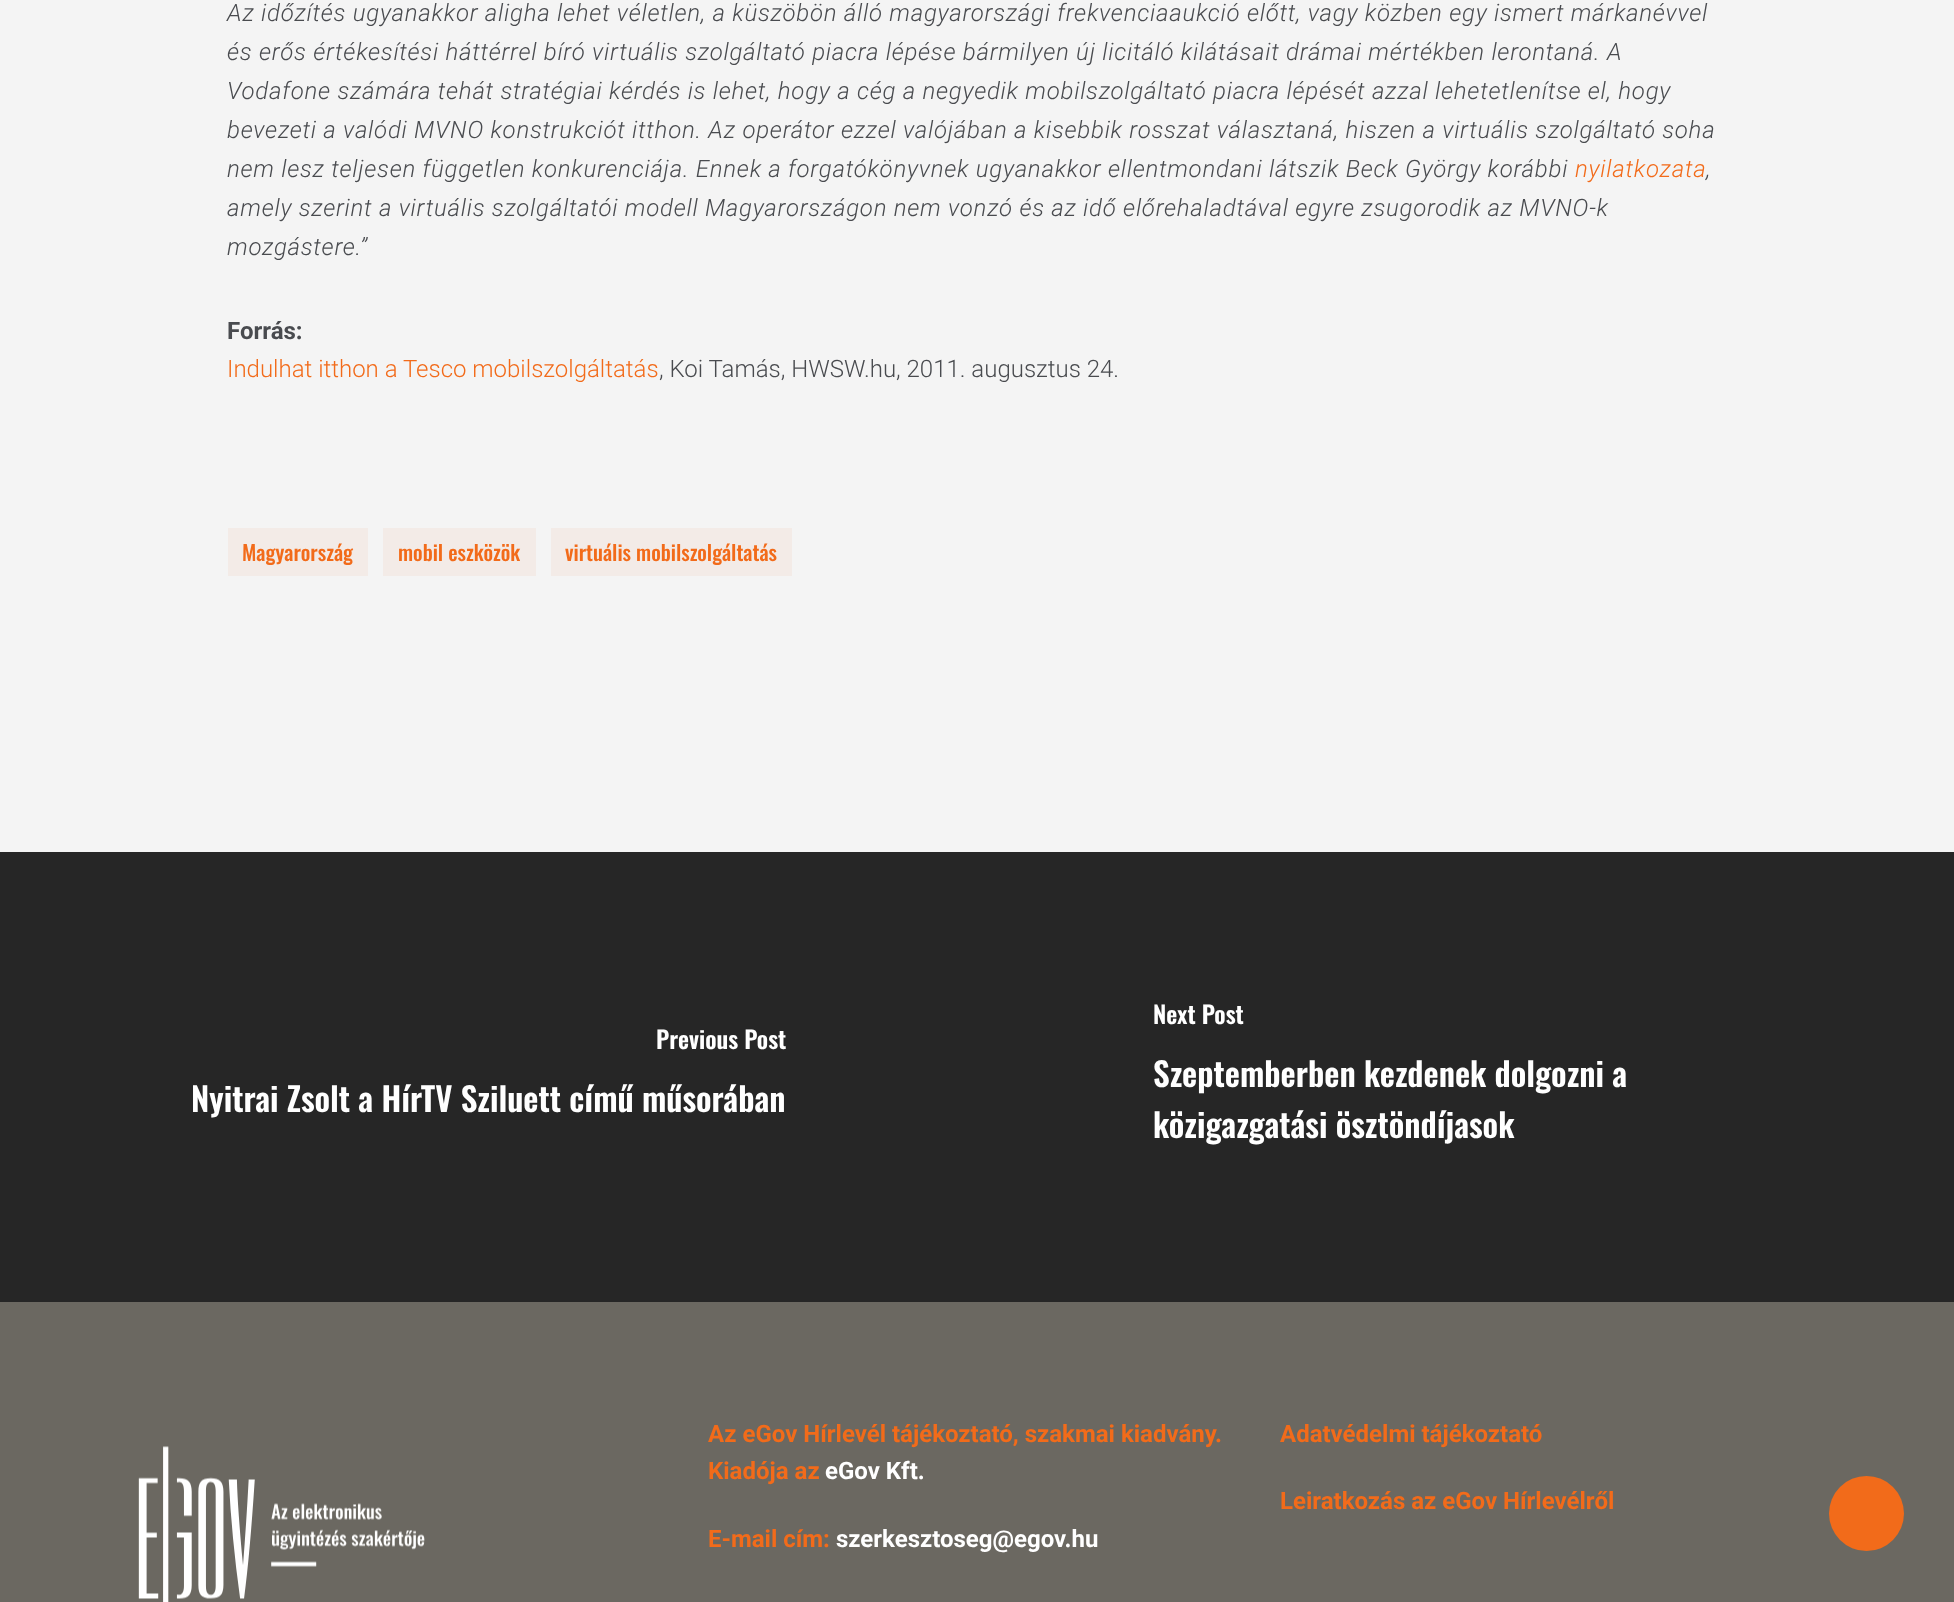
(async () => {
  const canvas = document.querySelector("canvas");
  canvas.width = 1954;
  canvas.height = 1602;
  const ctx = canvas.getContext("2d");
  ctx.miterLimit = 4;
  ctx.fontKerning = "normal";
  async function loadImage(src) {
    const img = new Image();
    img.src = src;
    await img.decode();
    return img;
  }

  ctx.fillStyle = "#f4f4f4";
  ctx.fillRect(0, 0, 1954, 1602);
  for (const [x, y, w, h, color] of [
    [228, 528, 140, 48, "rgba(242, 107, 26, 0.06)"],
    [383, 528, 153, 48, "rgba(242, 107, 26, 0.06)"],
    [551, 528, 241, 48, "rgba(242, 107, 26, 0.06)"],
    [0, 852, 1954, 450, "#262626"],
    [0, 1302, 1954, 300, "#6b6861"],
  ]) {
    ctx.fillStyle = color;
    ctx.fillRect(x, y, w, h);
  }
  ctx.drawImage(await loadImage("img/1.png"), 138, 1446, 287, 156);
  ctx.fillStyle = "#f26b1a";
  ctx.beginPath();
  ctx.arc(1866.5, 1513.5, 37.5, 0, Math.PI * 2);
  ctx.fill();
  ctx.letterSpacing = "0.75px";
  ctx.font = "italic 300 24px Roboto";
  ctx.fillStyle = "#494b4f";
  for (const [text, x, y] of [
    ["Az időzítés ugyanakkor aligha lehet véletlen, a küszöbön álló magyarországi frekvenciaaukció előtt, vagy közben egy ismert márkanévvel", 227, 21],
    ["és erős értékesítési háttérrel bíró virtuális szolgáltató piacra lépése bármilyen új licitáló kilátásait drámai mértékben lerontaná. A", 227, 60],
    ["Vodafone számára tehát stratégiai kérdés is lehet, hogy a cég a negyedik mobilszolgáltató piacra lépését azzal lehetetlenítse el, hogy", 227, 99],
    ["bevezeti a valódi MVNO konstrukciót itthon. Az operátor ezzel valójában a kisebbik rosszat választaná, hiszen a virtuális szolgáltató soha", 227, 138],
    ["nem lesz teljesen független konkurenciája. Ennek a forgatókönyvnek ugyanakkor ellentmondani látszik Beck György korábbi", 227, 177],
  ]) {
    ctx.fillText(text, x, y);
  }
  ctx.fillStyle = "#f26b1a";
  ctx.fillText("nyilatkozata", 1575, 177);
  ctx.fillStyle = "#494b4f";
  for (const [text, x, y] of [
    [",", 1706, 177],
    ["amely szerint a virtuális szolgáltatói modell Magyarországon nem vonzó és az idő előrehaladtával egyre zsugorodik az MVNO-k", 227, 216],
    ["mozgástere.”", 227, 255],
  ]) {
    ctx.fillText(text, x, y);
  }
  ctx.letterSpacing = "0px";
  ctx.font = "bold 24px Roboto";
  ctx.fillText("Forrás:", 227, 339);
  ctx.font = "300 24px Roboto";
  ctx.fillStyle = "#f26b1a";
  ctx.fillText("Indulhat itthon a Tesco mobilszolgáltatás", 227, 377);
  ctx.fillStyle = "#494b4f";
  ctx.fillText(", Koi Tamás, HWSW.hu, 2011. augusztus 24.", 659, 377);
  ctx.font = "500 21px Oswald";
  ctx.fillStyle = "#f26b1a";
  for (const [text, x, y] of [
    ["Magyarország", 242, 561],
    ["mobil eszközök", 398, 561],
    ["virtuális mobilszolgáltatás", 565, 561],
  ]) {
    ctx.fillText(text, x, y);
  }
  ctx.font = "600 24px Oswald";
  ctx.fillStyle = "#ffffff";
  ctx.fillText("Previous Post", 656, 1049);
  ctx.font = "600 33px Oswald";
  ctx.fillText("Nyitrai Zsolt a HírTV Sziluett című műsorában", 191, 1112);
  ctx.font = "600 24px Oswald";
  ctx.fillText("Next Post", 1153, 1024);
  ctx.font = "600 33px Oswald";
  ctx.fillText("Szeptemberben kezdenek dolgozni a", 1153, 1087);
  ctx.fillText("közigazgatási ösztöndíjasok", 1153, 1138);
  ctx.font = "bold 24px Roboto";
  ctx.fillStyle = "#f26b1a";
  ctx.fillText("Az eGov Hírlevél tájékoztató, szakmai kiadvány.", 708, 1442);
  ctx.fillText("Kiadója az", 708, 1479);
  ctx.fillStyle = "#ffffff";
  ctx.fillText("eGov Kft.", 825, 1479);
  ctx.fillStyle = "#f26b1a";
  ctx.fillText("E-mail cím:", 708, 1547);
  ctx.fillStyle = "#ffffff";
  ctx.fillText("szerkesztoseg@egov.hu", 836, 1547);
  ctx.fillStyle = "#f26b1a";
  ctx.fillText("Adatvédelmi tájékoztató", 1280, 1442);
  ctx.fillText("Leiratkozás az eGov Hírlevélről", 1280, 1509);
})();
